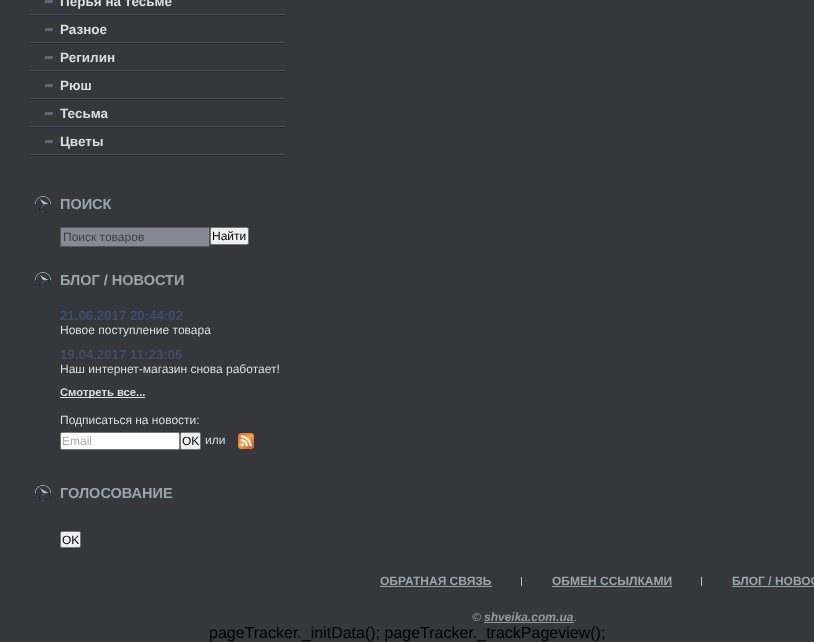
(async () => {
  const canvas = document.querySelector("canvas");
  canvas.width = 814;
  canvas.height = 642;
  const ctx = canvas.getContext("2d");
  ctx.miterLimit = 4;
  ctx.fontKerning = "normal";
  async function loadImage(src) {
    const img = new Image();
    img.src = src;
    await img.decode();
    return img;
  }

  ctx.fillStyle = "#35373b";
  ctx.fillRect(0, 0, 814, 642);
  ctx.drawImage(await loadImage("img/1.png"), 30, 14, 255, 2);
  ctx.fillStyle = "#58657e";
  ctx.fillRect(45, 0, 8, 3);
  ctx.drawImage(await loadImage("img/1.png"), 30, 42, 255, 2);
  ctx.fillRect(45, 28, 8, 3);
  ctx.drawImage(await loadImage("img/1.png"), 30, 70, 255, 2);
  ctx.fillRect(45, 56, 8, 3);
  ctx.drawImage(await loadImage("img/1.png"), 30, 98, 255, 2);
  ctx.fillRect(45, 84, 8, 3);
  ctx.drawImage(await loadImage("img/1.png"), 30, 126, 255, 2);
  ctx.fillRect(45, 112, 8, 3);
  ctx.drawImage(await loadImage("img/1.png"), 30, 154, 255, 2);
  ctx.fillRect(45, 140, 8, 3);
  ctx.drawImage(await loadImage("img/2.png"), 35, 196, 16, 16);
  ctx.fillStyle = "#848993";
  ctx.beginPath();
  ctx.rect(60.5, 227.5, 149, 19);
  ctx.fill();
  ctx.strokeStyle = "#53565c";
  ctx.stroke();
  ctx.fillStyle = "#efefef";
  ctx.beginPath();
  ctx.roundRect(210.5, 227.5, 38, 17, 1.5);
  ctx.fill();
  ctx.strokeStyle = "#767676";
  ctx.stroke();
  ctx.drawImage(await loadImage("img/2.png"), 35, 272, 16, 16);
  ctx.fillStyle = "#dddddd";
  ctx.fillRect(60, 397, 85, 1);
  ctx.fillStyle = "#ffffff";
  ctx.beginPath();
  ctx.roundRect(60.5, 432.5, 119, 17, 1.5);
  ctx.fill();
  ctx.stroke();
  ctx.fillStyle = "#efefef";
  ctx.beginPath();
  ctx.roundRect(180.5, 432.5, 20, 17, 1.5);
  ctx.fill();
  ctx.stroke();
  ctx.drawImage(await loadImage("img/3.png"), 238, 433, 16, 16);
  ctx.drawImage(await loadImage("img/2.png"), 35, 485, 16, 16);
  ctx.beginPath();
  ctx.roundRect(60.5, 531.5, 20, 16, 1.5);
  ctx.fill();
  ctx.stroke();
  for (const [x, y, w, h, color] of [
    [521, 577, 1, 9, "#bfbbc3"],
    [380, 586, 112, 1, "#97a5ae"],
    [701, 577, 1, 9, "#bfbbc3"],
    [552, 586, 120, 1, "#97a5ae"],
    [732, 586, 82, 1, "#97a5ae"],
    [484, 622, 90, 1, "#999999"],
  ]) {
    ctx.fillStyle = color;
    ctx.fillRect(x, y, w, h);
  }
  ctx.font = "bold 13.5px Liberation Sans";
  ctx.fillStyle = "#dddddd";
  for (const [text, x, y] of [
    ["Перья на тесьме", 60, 6],
    ["Разное", 60, 34],
    ["Регилин", 60, 62],
    ["Рюш", 60, 90],
    ["Тесьма", 60, 118],
    ["Цветы", 60, 146],
  ]) {
    ctx.fillText(text, x, y);
  }
  ctx.font = "bold 14.5px Liberation Sans";
  ctx.fillStyle = "#97a5ae";
  ctx.fillText("ПОИСК", 60, 209);
  ctx.font = "12px Liberation Sans";
  ctx.fillStyle = "#404040";
  ctx.fillText("Поиск товаров", 63, 241);
  ctx.fillStyle = "#000000";
  ctx.fillText("Найти", 212, 240);
  ctx.font = "bold 14.5px Liberation Sans";
  ctx.fillStyle = "#97a5ae";
  ctx.fillText("БЛОГ / НОВОСТИ", 60, 285);
  ctx.font = "bold 13.25px Liberation Sans";
  ctx.fillStyle = "#3f4c6b";
  ctx.fillText("21.06.2017 20:44:02", 60, 320);
  ctx.font = "12px Liberation Sans";
  ctx.fillStyle = "#dddddd";
  ctx.fillText("Новое поступление товара", 60, 334);
  ctx.font = "bold 13.25px Liberation Sans";
  ctx.fillStyle = "#3f4c6b";
  ctx.fillText("19.04.2017 11:23:05", 60, 359);
  ctx.font = "12px Liberation Sans";
  ctx.fillStyle = "#dddddd";
  ctx.fillText("Наш интернет-магазин снова работает!", 60, 373);
  ctx.font = "bold 11.25px Liberation Sans";
  ctx.fillText("Смотреть все...", 60, 396);
  ctx.font = "12px Liberation Sans";
  ctx.fillText("Подписаться на новости:", 60, 424);
  ctx.fillStyle = "#aaaaaa";
  ctx.fillText("Email", 62, 445);
  ctx.fillStyle = "#000000";
  ctx.fillText("OK", 182, 445);
  ctx.fillStyle = "#dddddd";
  ctx.fillText("или", 205, 444);
  ctx.font = "bold 14.5px Liberation Sans";
  ctx.fillStyle = "#97a5ae";
  ctx.fillText("ГОЛОСОВАНИЕ", 60, 498);
  ctx.font = "12px Liberation Sans";
  ctx.fillStyle = "#000000";
  ctx.fillText("OK", 62, 544);
  ctx.font = "bold 12px Liberation Sans";
  ctx.fillStyle = "#97a5ae";
  for (const [text, x, y] of [
    ["ОБРАТНАЯ СВЯЗЬ", 380, 585],
    ["ОБМЕН ССЫЛКАМИ", 552, 585],
    ["БЛОГ / НОВОС", 732, 585],
  ]) {
    ctx.fillText(text, x, y);
  }
  ctx.font = "italic 12px Liberation Sans";
  ctx.fillStyle = "#999999";
  ctx.fillText("©", 472, 621);
  ctx.font = "italic bold 12px Liberation Sans";
  ctx.fillText("shveika.сom.ua", 484, 621);
  ctx.font = "italic 12px Liberation Sans";
  ctx.fillText(".", 574, 621);
  ctx.font = "16px Liberation Sans";
  ctx.fillStyle = "#000000";
  ctx.fillText("pageTracker._initData(); pageTracker._trackPageview();", 209, 638);
})();
